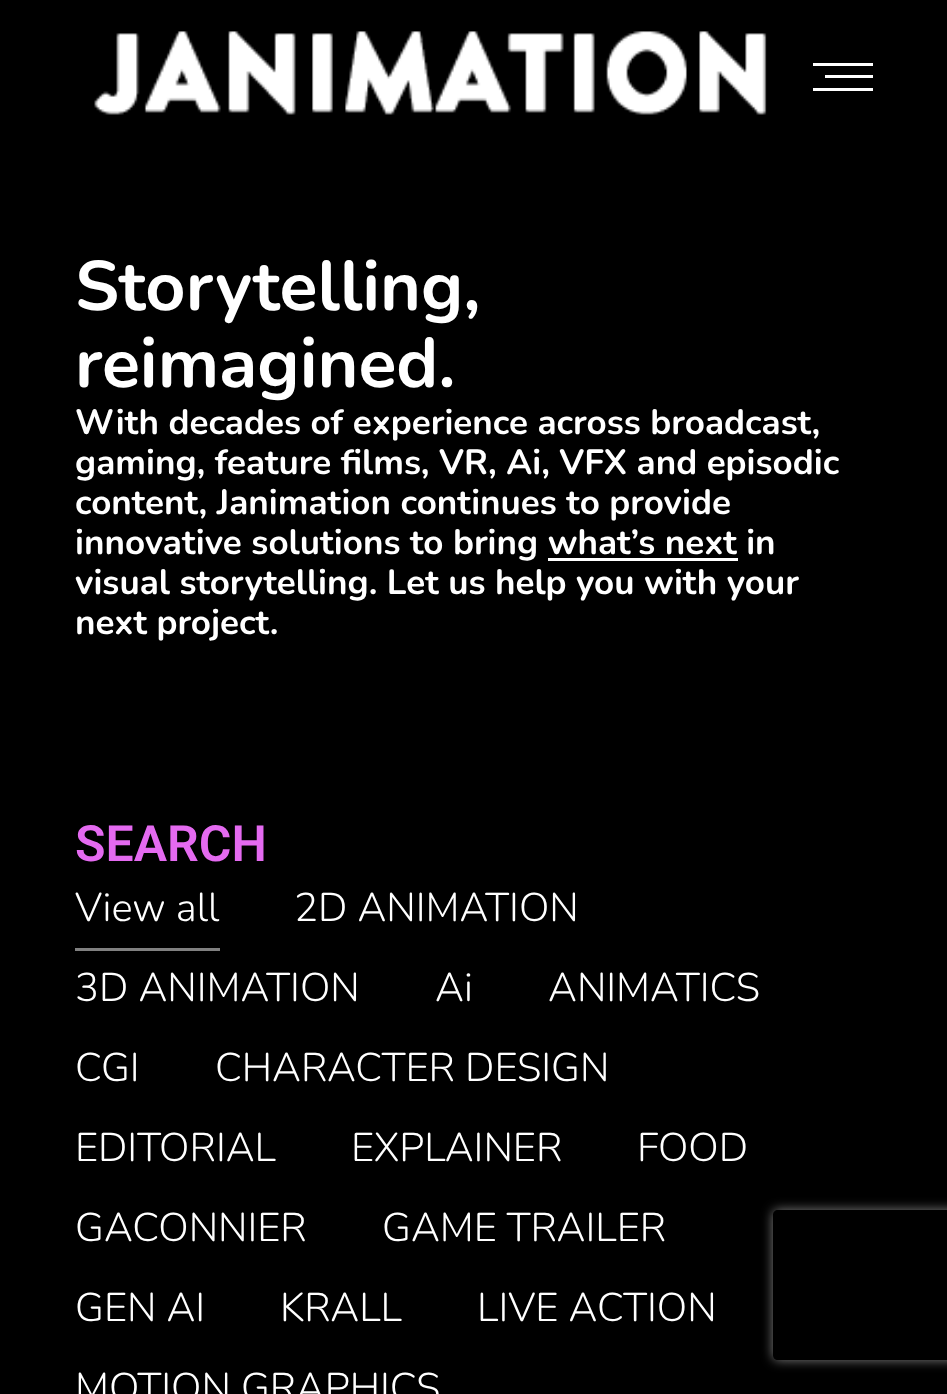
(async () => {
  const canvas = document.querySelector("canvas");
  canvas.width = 947;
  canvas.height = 1394;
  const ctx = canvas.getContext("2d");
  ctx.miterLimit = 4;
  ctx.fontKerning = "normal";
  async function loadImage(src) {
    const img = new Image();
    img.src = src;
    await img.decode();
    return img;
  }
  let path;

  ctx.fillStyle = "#000000";
  ctx.fillRect(0, 0, 947, 1394);
  ctx.drawImage(await loadImage("img/1.png"), 94, 31, 673, 84);
  for (const [x, y, w, h, color] of [
    [813, 63, 60, 3, "#ffffff"],
    [825, 75, 48, 3, "#ffffff"],
    [813, 88, 60, 3, "#ffffff"],
    [548, 558, 190, 3, "#ffffff"],
    [75, 948, 145, 3, "#808080"],
  ]) {
    ctx.fillStyle = color;
    ctx.fillRect(x, y, w, h);
  }
  ctx.save();
  path = new Path2D("M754 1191H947V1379H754ZM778 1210H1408C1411 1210 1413 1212 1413 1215V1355C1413 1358 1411 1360 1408 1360H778C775 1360 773 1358 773 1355V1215C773 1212 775 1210 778 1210Z");
  ctx.clip(path, "evenodd");
  ctx.filter = "blur(6px)";
  ctx.beginPath();
  ctx.roundRect(773, 1210, 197, 150, 5);
  ctx.fill();
  ctx.filter = "none";
  ctx.restore();
  ctx.font = "bold 70px Nunito";
  ctx.fillStyle = "#ffffff";
  ctx.fillText("Storytelling,", 75, 310);
  ctx.fillText("reimagined.", 75, 387);
  ctx.font = "bold 35px Nunito";
  for (const [text, x, y] of [
    ["With decades of experience across broadcast,", 75, 434],
    ["gaming, feature films, VR, Ai, VFX and episodic", 75, 474],
    ["content, Janimation continues to provide", 75, 514],
    ["innovative solutions to bring what’s next in", 75, 554],
    ["visual storytelling. Let us help you with your", 75, 594],
    ["next project.", 75, 634],
  ]) {
    ctx.fillText(text, x, y);
  }
  ctx.font = "600 50px Roboto";
  ctx.fillStyle = "#e46af0";
  ctx.fillText("SEARCH", 75, 861);
  ctx.font = "300 40px Nunito";
  ctx.fillStyle = "#ffffff";
  for (const [text, x, y] of [
    ["View all", 75, 921],
    ["2D ANIMATION", 294, 921],
    ["3D ANIMATION", 75, 1001],
    ["Ai", 435, 1001],
    ["ANIMATICS", 548, 1001],
    ["CGI", 75, 1081],
    ["CHARACTER DESIGN", 215, 1081],
    ["EDITORIAL", 75, 1161],
    ["EXPLAINER", 351, 1161],
    ["FOOD", 637, 1161],
    ["GACONNIER", 75, 1241],
    ["GAME TRAILER", 382, 1241],
    ["GEN AI", 75, 1321],
    ["KRALL", 280, 1321],
    ["LIVE ACTION", 477, 1321],
    ["MOTION GRAPHICS", 75, 1401],
  ]) {
    ctx.fillText(text, x, y);
  }
})();
